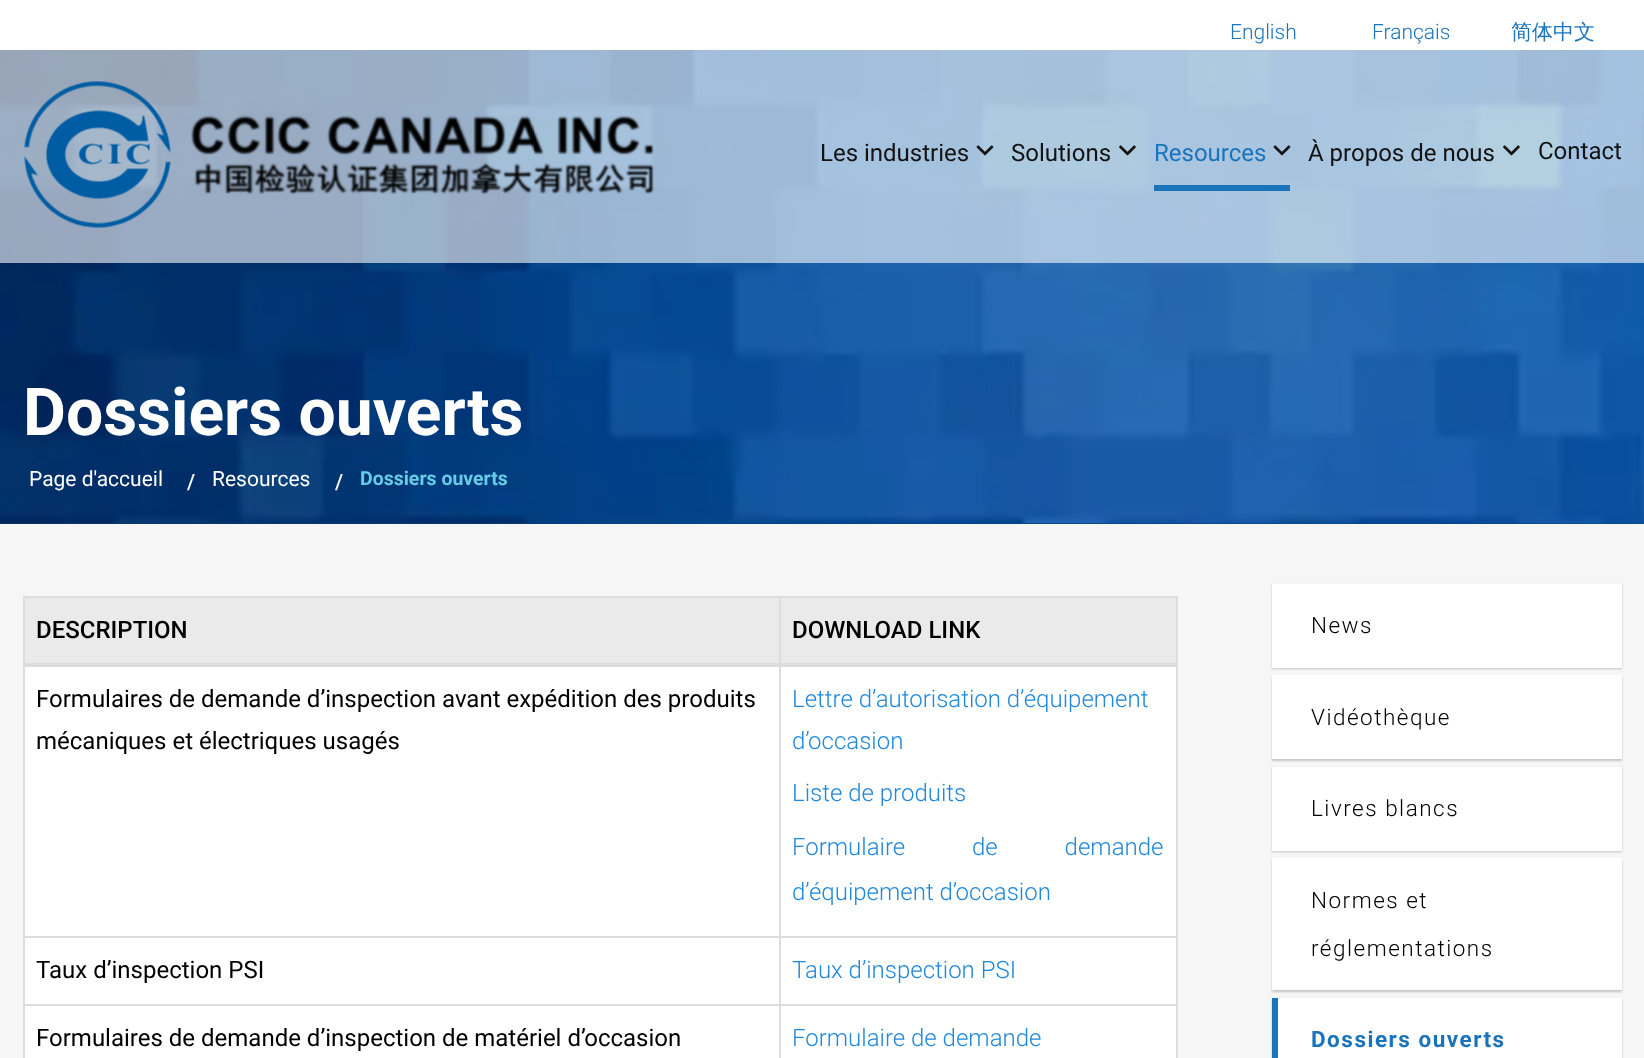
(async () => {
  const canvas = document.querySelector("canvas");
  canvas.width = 1644;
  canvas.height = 1058;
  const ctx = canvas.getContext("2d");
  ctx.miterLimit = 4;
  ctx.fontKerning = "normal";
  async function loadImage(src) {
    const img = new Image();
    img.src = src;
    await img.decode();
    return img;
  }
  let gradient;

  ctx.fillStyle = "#ffffff";
  ctx.fillRect(0, 0, 1644, 1058);
  gradient = ctx.createLinearGradient(0, 262, 1644, 262);
  gradient.addColorStop(0, "#013c6f");
  gradient.addColorStop(1, "#044b84");
  ctx.fillStyle = gradient;
  ctx.fillRect(0, 523, 1644, 1);
  ctx.drawImage(await loadImage("img/6.png"), 0, 50, 1644, 474);
  ctx.fillStyle = "rgba(255, 255, 255, 0.6)";
  ctx.fillRect(0, 50, 1644, 213);
  ctx.drawImage(await loadImage("img/1.png"), 24, 81, 630, 147);
  ctx.drawImage(await loadImage("img/2.png"), 976, 145, 18, 11);
  ctx.drawImage(await loadImage("img/3.png"), 1119, 145, 17, 11);
  ctx.drawImage(await loadImage("img/4.png"), 1273, 145, 18, 11);
  ctx.fillStyle = "#1a74bb";
  ctx.fillRect(1154, 185, 136, 6);
  ctx.drawImage(await loadImage("img/5.png"), 1503, 145, 17, 11);
  for (const [x, y, w, h, color] of [
    [0, 524, 1644, 534, "#f6f6f6"],
    [23, 596, 1155, 2, "#dddddd"],
    [1176, 596, 2, 462, "#dddddd"],
    [23, 596, 2, 462, "#dddddd"],
    [25, 598, 754, 65, "#eaeaea"],
    [781, 598, 395, 65, "#eaeaea"],
    [779, 666, 399, 1, "#dddddd"],
    [779, 936, 399, 2, "#dddddd"],
    [779, 1004, 399, 2, "#dddddd"],
    [779, 1004, 2, 54, "#dddddd"],
    [23, 1004, 757, 2, "#dddddd"],
    [779, 936, 2, 69, "#dddddd"],
    [23, 936, 757, 2, "#dddddd"],
    [779, 596, 2, 342, "#dddddd"],
    [23, 663, 1155, 3, "#dddddd"],
    [25, 667, 754, 269, "#ffffff"],
    [23, 666, 757, 1, "#dddddd"],
    [781, 667, 395, 269, "#ffffff"],
    [25, 938, 754, 66, "#ffffff"],
    [781, 938, 395, 66, "#ffffff"],
    [25, 1006, 754, 52, "#ffffff"],
    [781, 1006, 395, 52, "#ffffff"],
  ]) {
    ctx.fillStyle = color;
    ctx.fillRect(x, y, w, h);
  }
  ctx.fillStyle = "rgba(0, 0, 0, 0.2)";
  ctx.filter = "blur(1px)";
  ctx.beginPath();
  ctx.rect(1272, 585, 350, 84);
  ctx.fill();
  ctx.filter = "none";
  ctx.fillStyle = "#ffffff";
  ctx.fillRect(1272, 584, 350, 84);
  ctx.fillStyle = "rgba(0, 0, 0, 0.2)";
  ctx.filter = "blur(1px)";
  ctx.beginPath();
  ctx.rect(1272, 677, 350, 84);
  ctx.fill();
  ctx.filter = "none";
  ctx.fillStyle = "#ffffff";
  ctx.fillRect(1272, 675, 350, 84);
  ctx.fillStyle = "rgba(0, 0, 0, 0.2)";
  ctx.filter = "blur(1px)";
  ctx.beginPath();
  ctx.rect(1272, 768, 350, 84);
  ctx.fill();
  ctx.filter = "none";
  ctx.fillStyle = "#ffffff";
  ctx.fillRect(1272, 767, 350, 84);
  ctx.fillStyle = "rgba(0, 0, 0, 0.2)";
  ctx.filter = "blur(1px)";
  ctx.beginPath();
  ctx.rect(1272, 860, 350, 132);
  ctx.fill();
  ctx.filter = "none";
  ctx.fillStyle = "#ffffff";
  ctx.fillRect(1272, 858, 350, 132);
  ctx.fillStyle = "rgba(0, 0, 0, 0.2)";
  ctx.filter = "blur(1px)";
  ctx.beginPath();
  ctx.rect(1272, 999, 350, 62);
  ctx.fill();
  ctx.filter = "none";
  ctx.fillStyle = "#ffffff";
  ctx.fillRect(1278, 998, 344, 60);
  ctx.fillStyle = "#1a74bb";
  ctx.fillRect(1272, 998, 6, 60);
  ctx.font = "300 21px Roboto";
  ctx.fillText("English", 1230, 39);
  ctx.fillText("Français", 1372, 39);
  ctx.font = "500 21px WenQuanYi Zen Hei";
  ctx.fillText("简体中文", 1511, 39);
  ctx.font = "24px Roboto";
  ctx.fillStyle = "#131313";
  ctx.fillText("Les industries", 820, 161);
  ctx.fillText("Solutions", 1011, 161);
  ctx.fillStyle = "#1a74bb";
  ctx.fillText("Resources", 1154, 161);
  ctx.fillStyle = "#131313";
  ctx.fillText("À propos de nous", 1308, 161);
  ctx.fillText("Contact", 1538, 159);
  ctx.font = "bold 66px Roboto";
  ctx.fillStyle = "#ffffff";
  ctx.fillText("Dossiers ouverts", 23, 435);
  ctx.font = "21px Roboto";
  ctx.fillText("Page d'accueil", 29, 486);
  ctx.font = "500 21px Roboto";
  ctx.fillText("/", 187, 489);
  ctx.font = "21px Roboto";
  ctx.fillText("Resources", 212, 486);
  ctx.font = "500 21px Roboto";
  ctx.fillText("/", 335, 489);
  ctx.font = "bold 19.5px Roboto";
  ctx.fillStyle = "#66cce8";
  ctx.fillText("Dossiers ouverts", 360, 485);
  ctx.font = "500 24px Roboto";
  ctx.fillStyle = "#000000";
  ctx.fillText("DESCRIPTION", 36, 638);
  ctx.fillText("DOWNLOAD LINK", 792, 638);
  ctx.font = "24px Roboto";
  ctx.fillText("Formulaires de demande d’inspection avant expédition des produits", 36, 707);
  ctx.fillText("mécaniques et électriques usagés", 36, 749);
  ctx.font = "300 24px Roboto";
  ctx.fillStyle = "#2088da";
  for (const [text, x, y] of [
    ["Lettre d’autorisation d’équipement", 792, 707],
    ["d’occasion", 792, 749],
    ["Liste de produits", 792, 801],
  ]) {
    ctx.fillText(text, x, y);
  }
  ctx.wordSpacing = "61px";
  ctx.fillText("Formulaire de demande", 792, 855);
  ctx.wordSpacing = "0px";
  ctx.fillText("d’équipement d’occasion", 792, 900);
  ctx.font = "24px Roboto";
  ctx.fillStyle = "#000000";
  ctx.fillText("Taux d’inspection PSI", 36, 978);
  ctx.font = "300 24px Roboto";
  ctx.fillStyle = "#2088da";
  ctx.fillText("Taux d’inspection PSI", 792, 978);
  ctx.font = "24px Roboto";
  ctx.fillStyle = "#000000";
  ctx.fillText("Formulaires de demande d’inspection de matériel d’occasion", 36, 1046);
  ctx.font = "300 24px Roboto";
  ctx.fillStyle = "#2088da";
  ctx.fillText("Formulaire de demande", 792, 1046);
  ctx.letterSpacing = "1.5px";
  ctx.font = "300 22.5px Roboto";
  ctx.fillStyle = "#000000";
  for (const [text, x, y] of [
    ["News", 1311, 633],
    ["Vidéothèque", 1311, 725],
    ["Livres blancs", 1311, 816],
    ["Normes et", 1311, 908],
    ["réglementations", 1311, 956],
  ]) {
    ctx.fillText(text, x, y);
  }
  ctx.font = "bold 22.5px Roboto";
  ctx.fillStyle = "#1a74bb";
  ctx.fillText("Dossiers ouverts", 1311, 1047);
})();
